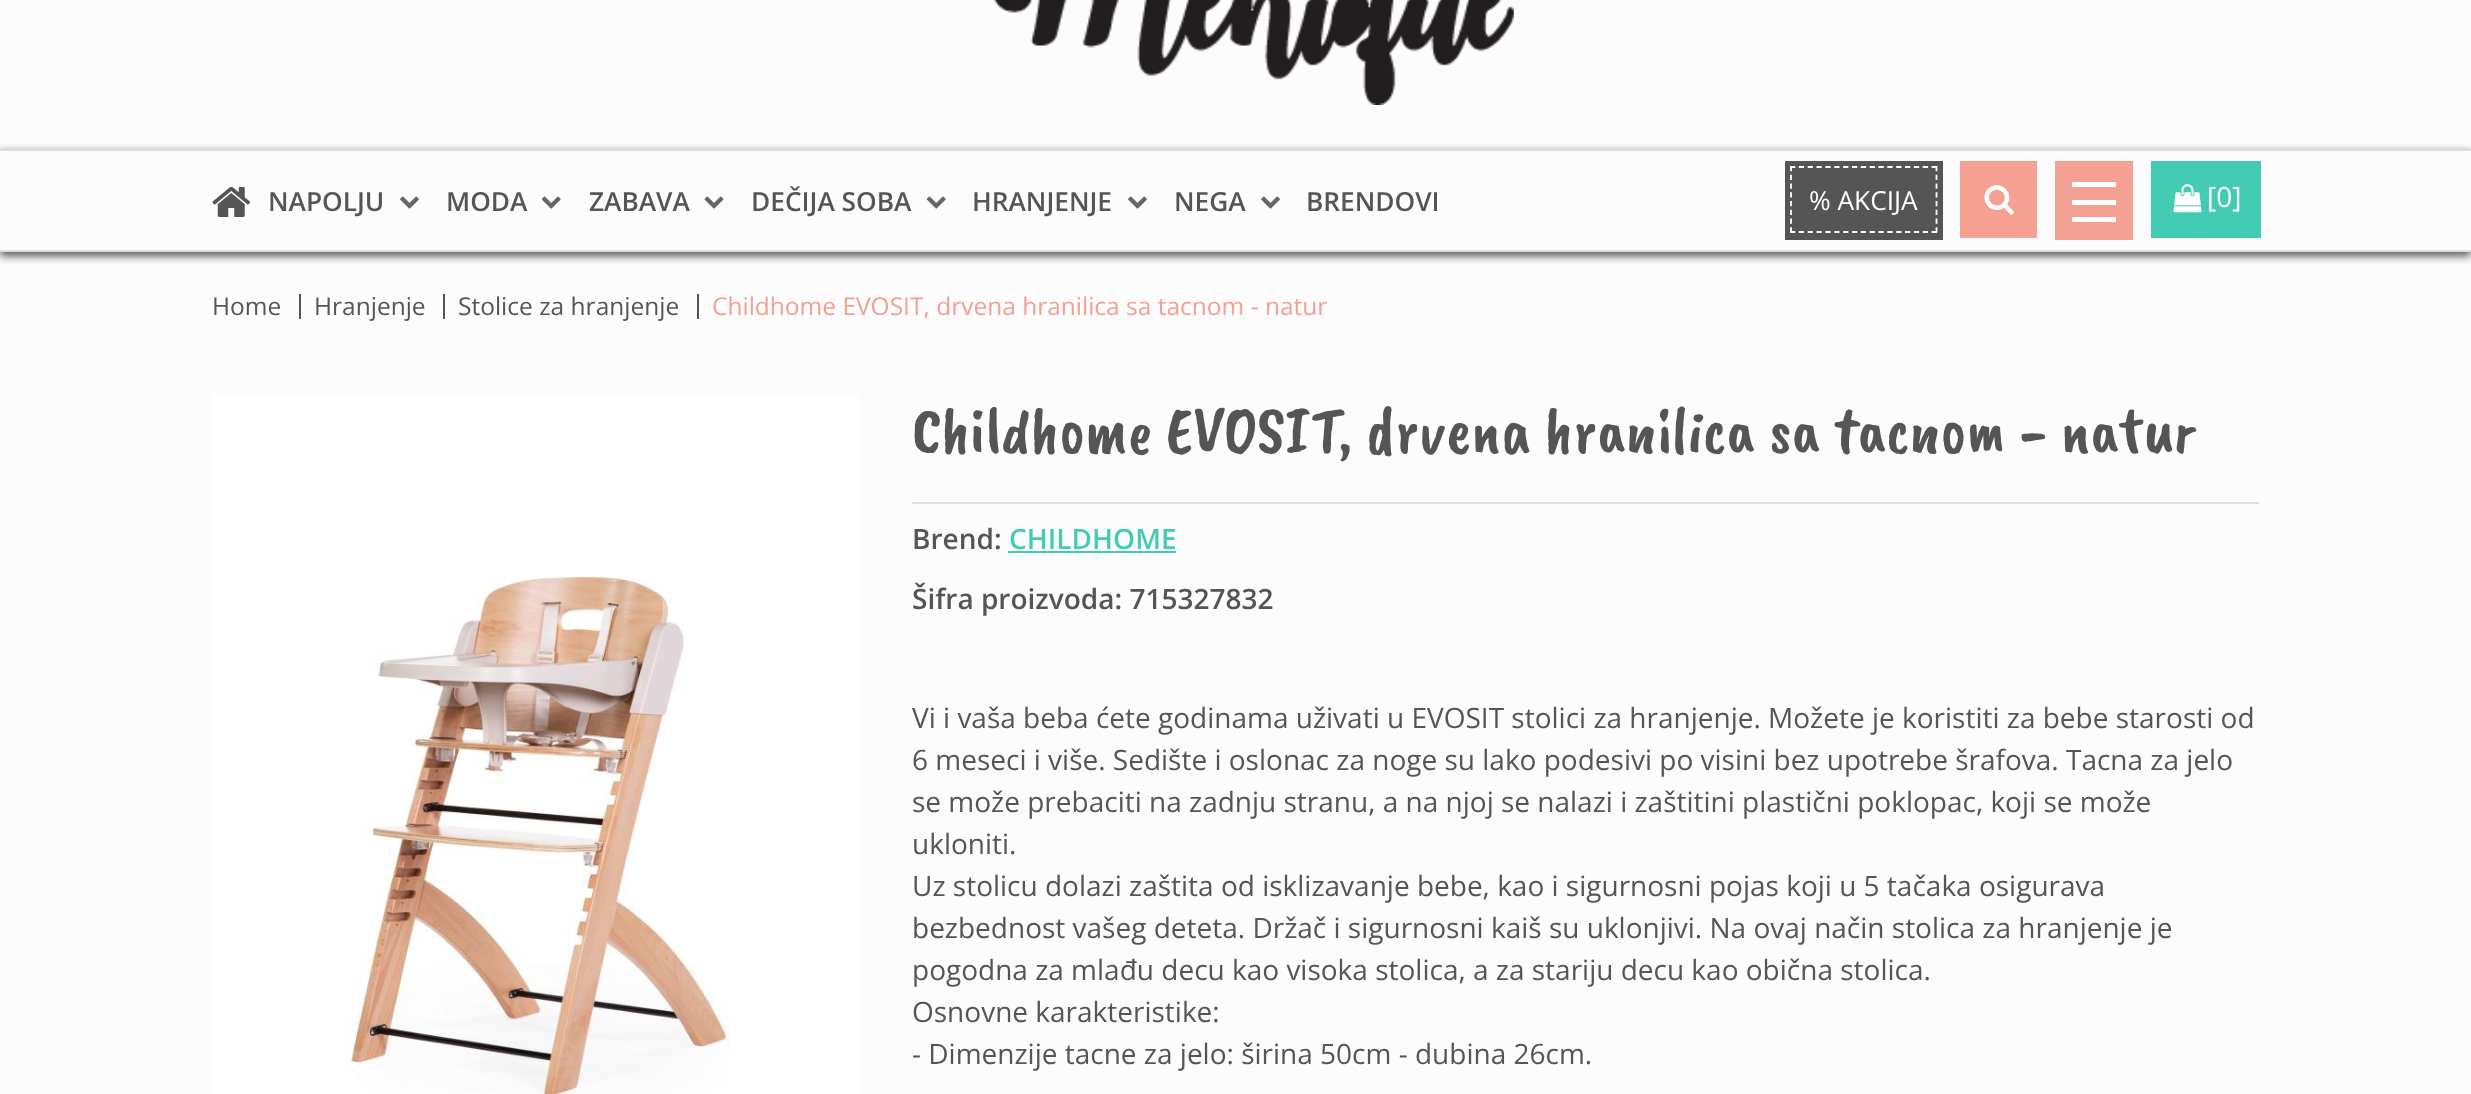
(async () => {
  const canvas = document.querySelector("canvas");
  canvas.width = 2471;
  canvas.height = 1094;
  const ctx = canvas.getContext("2d");
  ctx.miterLimit = 4;
  ctx.fontKerning = "normal";
  async function loadImage(src) {
    const img = new Image();
    img.src = src;
    await img.decode();
    return img;
  }
  let path;

  ctx.fillStyle = "#fcfcfc";
  ctx.fillRect(0, 0, 2471, 1094);
  ctx.drawImage(await loadImage("img/1.png"), 993, 0, 521, 105);
  ctx.save();
  path = new Path2D("M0 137H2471V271H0ZM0 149H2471V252H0Z");
  ctx.clip(path, "evenodd");
  ctx.fillStyle = "#555555";
  ctx.filter = "blur(4.5px)";
  ctx.beginPath();
  ctx.rect(0, 152, 2471, 104);
  ctx.fill();
  ctx.filter = "none";
  ctx.restore();
  ctx.fillStyle = "#dddddd";
  ctx.fillRect(0, 149, 2471, 2);
  ctx.fillRect(0, 250, 2471, 2);
  ctx.drawImage(await loadImage("img/2.png"), 212, 186, 39, 31);
  ctx.drawImage(await loadImage("img/3.png"), 400, 196, 19, 13);
  ctx.drawImage(await loadImage("img/4.png"), 541, 196, 20, 13);
  ctx.drawImage(await loadImage("img/5.png"), 704, 196, 20, 13);
  ctx.drawImage(await loadImage("img/4.png"), 926, 196, 20, 13);
  ctx.drawImage(await loadImage("img/3.png"), 1128, 196, 19, 13);
  ctx.drawImage(await loadImage("img/3.png"), 1261, 196, 19, 13);
  ctx.fillStyle = "#555555";
  ctx.fillRect(1785, 161, 158, 79);
  path = new Path2D("M1790 167H1937");
  ctx.strokeStyle = "#ffffff";
  ctx.lineWidth = 1.8;
  ctx.setLineDash([5.25, 3.6]);
  ctx.stroke(path);
  path = new Path2D("M1936.5 166V233");
  ctx.setLineDash([5.25, 3.5]);
  ctx.stroke(path);
  path = new Path2D("M1790 232H1937");
  ctx.setLineDash([5.25, 3.6]);
  ctx.stroke(path);
  path = new Path2D("M1791 166V233");
  ctx.setLineDash([5.25, 3.5]);
  ctx.stroke(path);
  ctx.fillStyle = "#f4a093";
  ctx.fillRect(1960, 161, 77, 77);
  ctx.drawImage(await loadImage("img/6.png"), 1984, 185, 30, 30);
  for (const [x, y, w, h, color] of [
    [2055, 161, 78, 79, "#f4a093"],
    [2072, 200, 44, 5, "#ffffff"],
    [2072, 182, 44, 5, "#ffffff"],
    [2072, 217, 44, 5, "#ffffff"],
    [2151, 161, 110, 77, "#43ccb3"],
  ]) {
    ctx.fillStyle = color;
    ctx.fillRect(x, y, w, h);
  }
  ctx.drawImage(await loadImage("img/7.png"), 2173, 184, 29, 29);
  for (const [x, y, w, h, color] of [
    [299, 294, 2, 25, "#555555"],
    [443, 294, 2, 25, "#555555"],
    [697, 294, 2, 25, "#555555"],
    [212, 394, 647, 700, "#ffffff"],
  ]) {
    ctx.fillStyle = color;
    ctx.fillRect(x, y, w, h);
  }
  ctx.drawImage(await loadImage("img/8.png"), 345, 576, 385, 518);
  ctx.fillStyle = "#dddddd";
  ctx.fillRect(912, 502, 1347, 2);
  ctx.fillStyle = "#43ccb3";
  ctx.fillRect(1008, 551, 168, 2);
  ctx.font = "600 26.25px Open Sans";
  ctx.fillStyle = "#555555";
  for (const [text, x, y] of [
    ["NAPOLJU", 268, 211],
    ["MODA", 446, 211],
    ["ZABAVA", 589, 211],
    ["DEČIJA SOBA", 751, 211],
    ["HRANJENJE", 972, 211],
    ["NEGA", 1174, 211],
    ["BRENDOVI", 1306, 211],
  ]) {
    ctx.fillText(text, x, y);
  }
  ctx.font = "26.25px Open Sans";
  ctx.fillStyle = "#ffffff";
  ctx.fillText("% AKCIJA", 1809, 210);
  ctx.font = "28px Open Sans";
  ctx.fillText("[0]", 2207, 207);
  ctx.font = "24.5px Open Sans";
  ctx.fillStyle = "#555555";
  for (const [text, x, y] of [
    ["Home", 212, 315],
    ["Hranjenje", 314, 315],
    ["Stolice za hranjenje", 458, 315],
  ]) {
    ctx.fillText(text, x, y);
  }
  ctx.fillStyle = "#f4a093";
  ctx.fillText("Childhome EVOSIT, drvena hranilica sa tacnom - natur", 712, 315);
  ctx.font = "66.5px Caveat Brush";
  ctx.fillStyle = "#555555";
  ctx.fillText("Childhome EVOSIT, drvena hranilica sa tacnom - natur", 912, 452);
  ctx.font = "600 28px Open Sans";
  ctx.fillText("Brend:", 912, 549);
  ctx.fillStyle = "#43ccb3";
  ctx.fillText("CHILDHOME", 1009, 549);
  ctx.fillStyle = "#555555";
  ctx.fillText("Šifra proizvoda: 715327832", 912, 609);
  ctx.font = "28px Open Sans";
  for (const [text, x, y] of [
    ["Vi i vaša beba ćete godinama uživati u EVOSIT stolici za hranjenje. Možete je koristiti za bebe starosti od", 912, 728],
    ["6 meseci i više. Sedište i oslonac za noge su lako podesivi po visini bez upotrebe šrafova. Tacna za jelo", 912, 770],
    ["se može prebaciti na zadnju stranu, a na njoj se nalazi i zaštitini plastični poklopac, koji se može", 912, 812],
    ["ukloniti.", 912, 854],
    ["Uz stolicu dolazi zaštita od isklizavanje bebe, kao i sigurnosni pojas koji u 5 tačaka osigurava", 912, 896],
    ["bezbednost vašeg deteta. Držač i sigurnosni kaiš su uklonjivi. Na ovaj način stolica za hranjenje je", 912, 938],
    ["pogodna za mlađu decu kao visoka stolica, a za stariju decu kao obična stolica.", 912, 980],
    ["Osnovne karakteristike:", 912, 1022],
    ["- Dimenzije tacne za jelo: širina 50cm - dubina 26cm.", 912, 1064],
  ]) {
    ctx.fillText(text, x, y);
  }
})();
